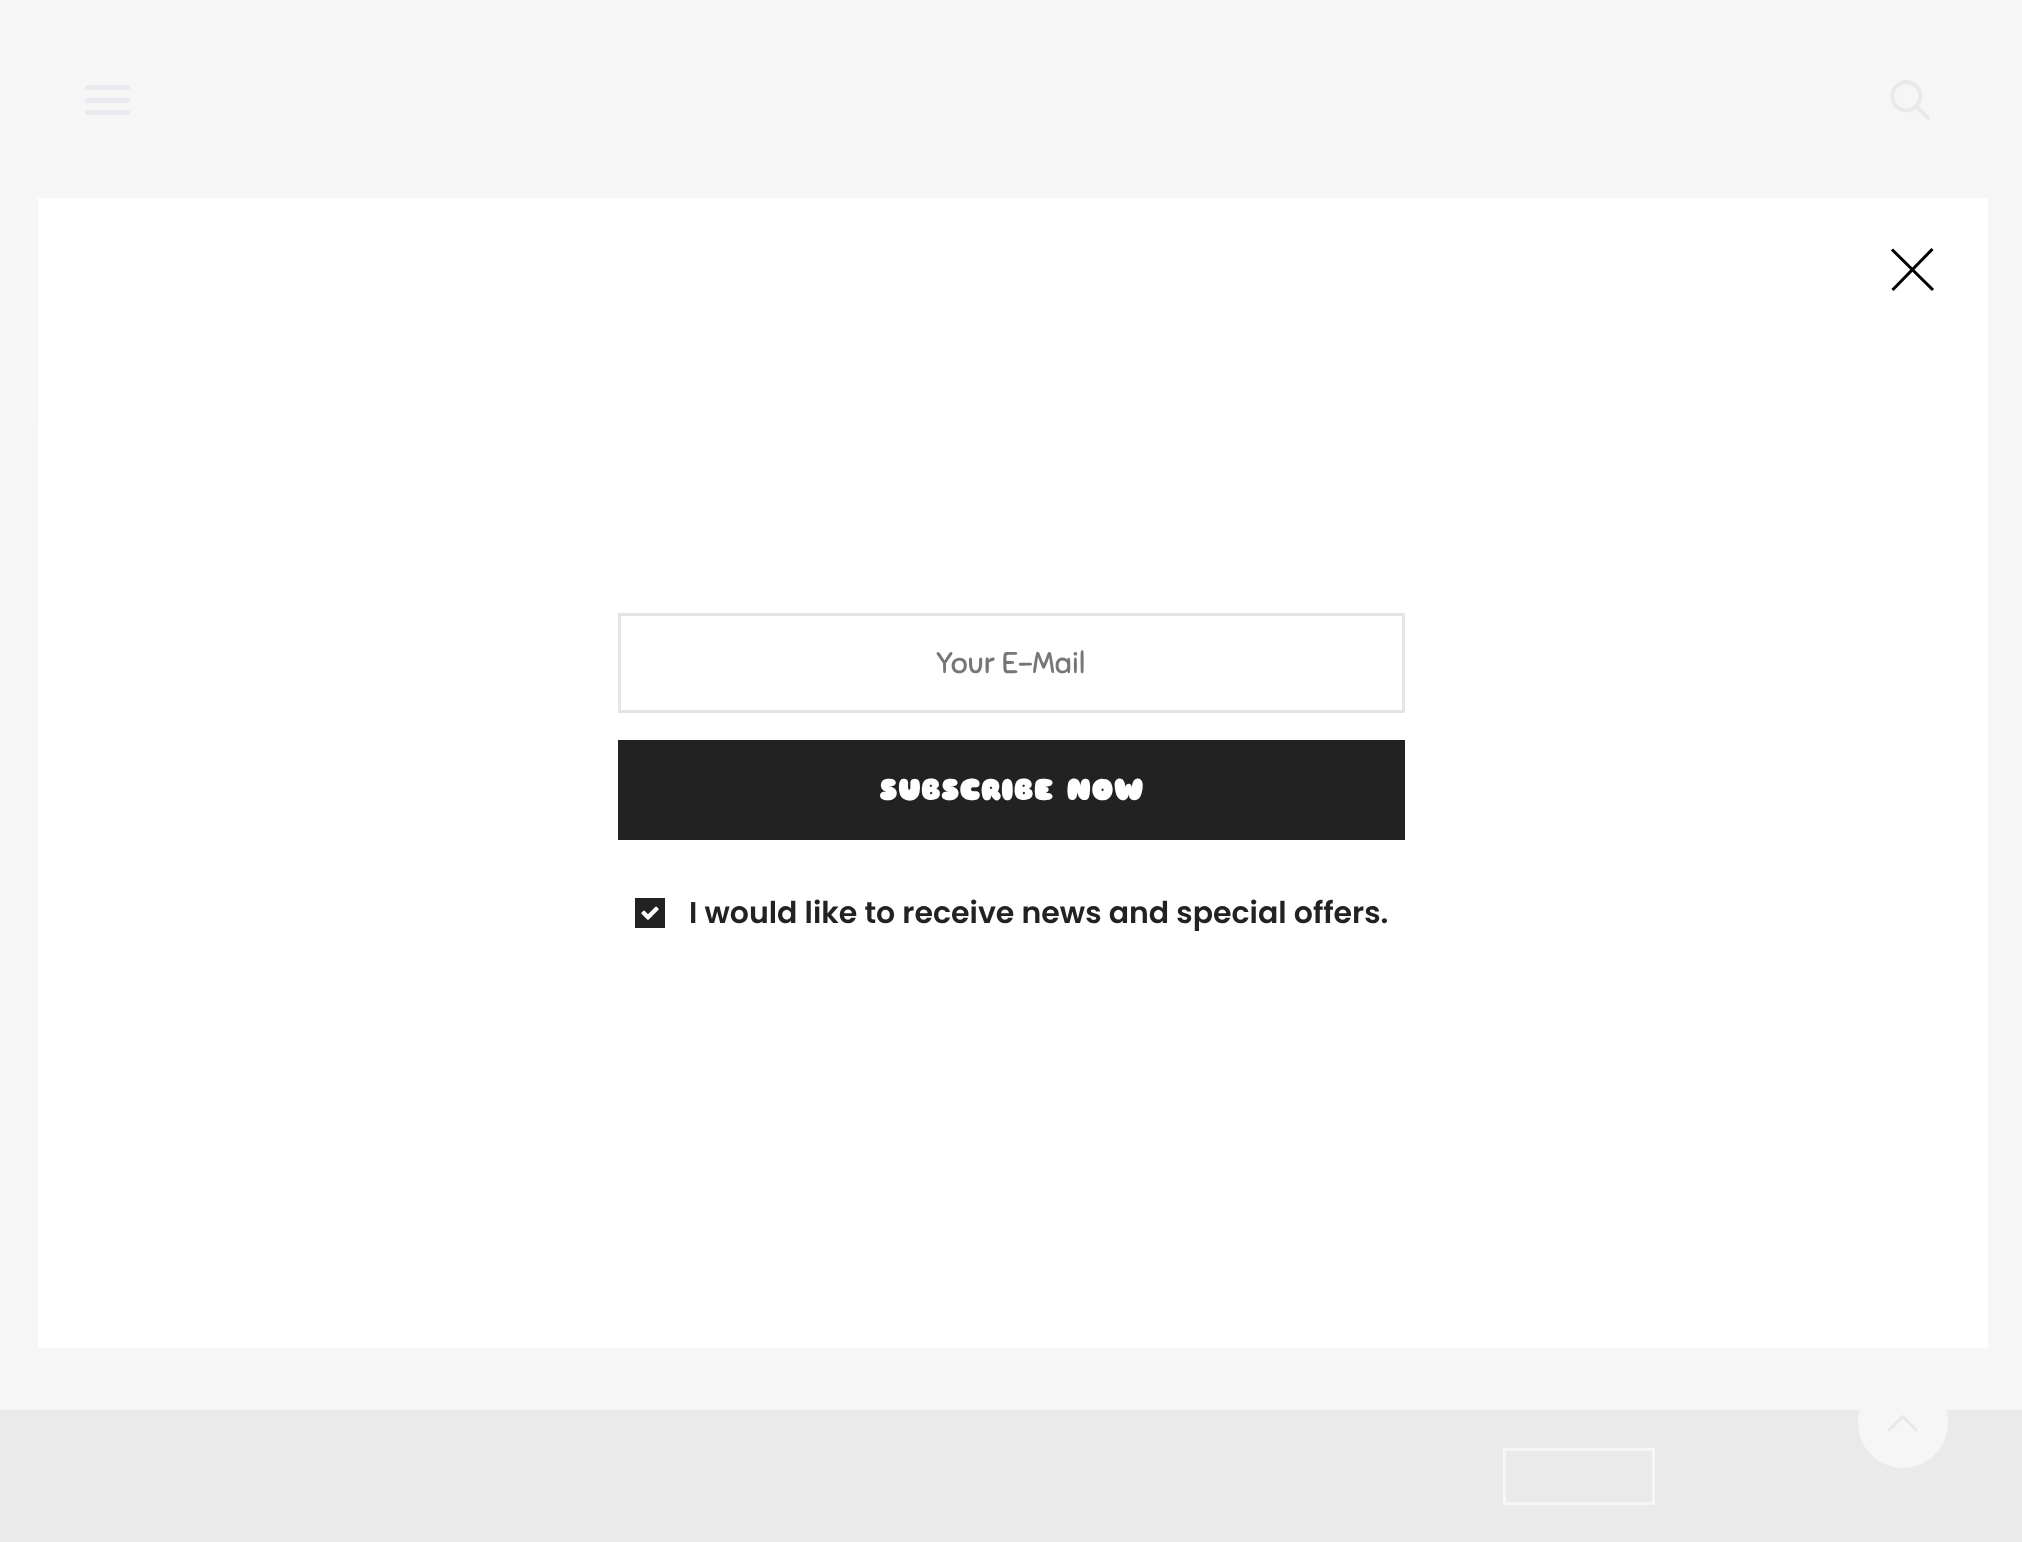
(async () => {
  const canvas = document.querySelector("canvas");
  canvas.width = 2022;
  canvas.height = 1542;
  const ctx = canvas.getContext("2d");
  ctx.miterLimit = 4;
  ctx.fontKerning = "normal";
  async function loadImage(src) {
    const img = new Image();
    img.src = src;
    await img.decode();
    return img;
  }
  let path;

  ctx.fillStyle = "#f6f6f6";
  ctx.fillRect(0, 0, 2022, 1542);
  ctx.fillStyle = "#e9e9f0";
  ctx.beginPath();
  ctx.roundRect(85, 85, 45, 5, 2.5);
  ctx.fill();
  ctx.beginPath();
  ctx.roundRect(85, 98, 45, 5, 2.5);
  ctx.fill();
  ctx.beginPath();
  ctx.roundRect(85, 110, 45, 5, 2.5);
  ctx.fill();
  ctx.drawImage(await loadImage("img/1.png"), 1890, 80, 40, 40);
  ctx.drawImage(await loadImage("img/2.png"), 37, 200, 1, 220);
  ctx.fillStyle = "#ffffff";
  ctx.fillRect(38, 198, 1950, 1150);
  path = new Path2D("M1892 249.5L1933 290M1892.5 290L1932.5 249");
  ctx.strokeStyle = "#000000";
  ctx.lineWidth = 3.1;
  ctx.stroke(path);
  ctx.strokeStyle = "#e5e5e5";
  ctx.lineWidth = 3;
  ctx.strokeRect(619.5, 614.5, 784, 97);
  ctx.fillStyle = "#222222";
  ctx.fillRect(618, 740, 787, 100);
  ctx.fillRect(635, 898, 30, 30);
  ctx.drawImage(await loadImage("img/3.png"), 641, 906, 18, 14);
  ctx.fillStyle = "#eaeaea";
  ctx.fillRect(0, 1410, 2022, 132);
  ctx.fillStyle = "#f6f6f6";
  ctx.beginPath();
  ctx.arc(1903, 1423, 45, 0, Math.PI * 2);
  ctx.fill();
  ctx.drawImage(await loadImage("img/4.png"), 1888, 1415, 30, 17);
  ctx.strokeStyle = "#f6f6f6";
  ctx.strokeRect(1504.5, 1449.5, 149, 54);
  ctx.font = "30px Sniglet";
  ctx.fillStyle = "#767676";
  ctx.fillText("Your E-Mail", 936, 673);
  ctx.font = "800 30px Sniglet";
  ctx.fillStyle = "#ffffff";
  ctx.fillText("SUBSCRIBE NOW", 879, 800);
  ctx.font = "600 30px Poppins";
  ctx.fillStyle = "#222222";
  ctx.fillText("I would like to receive news and special offers.", 689, 923);
})();
